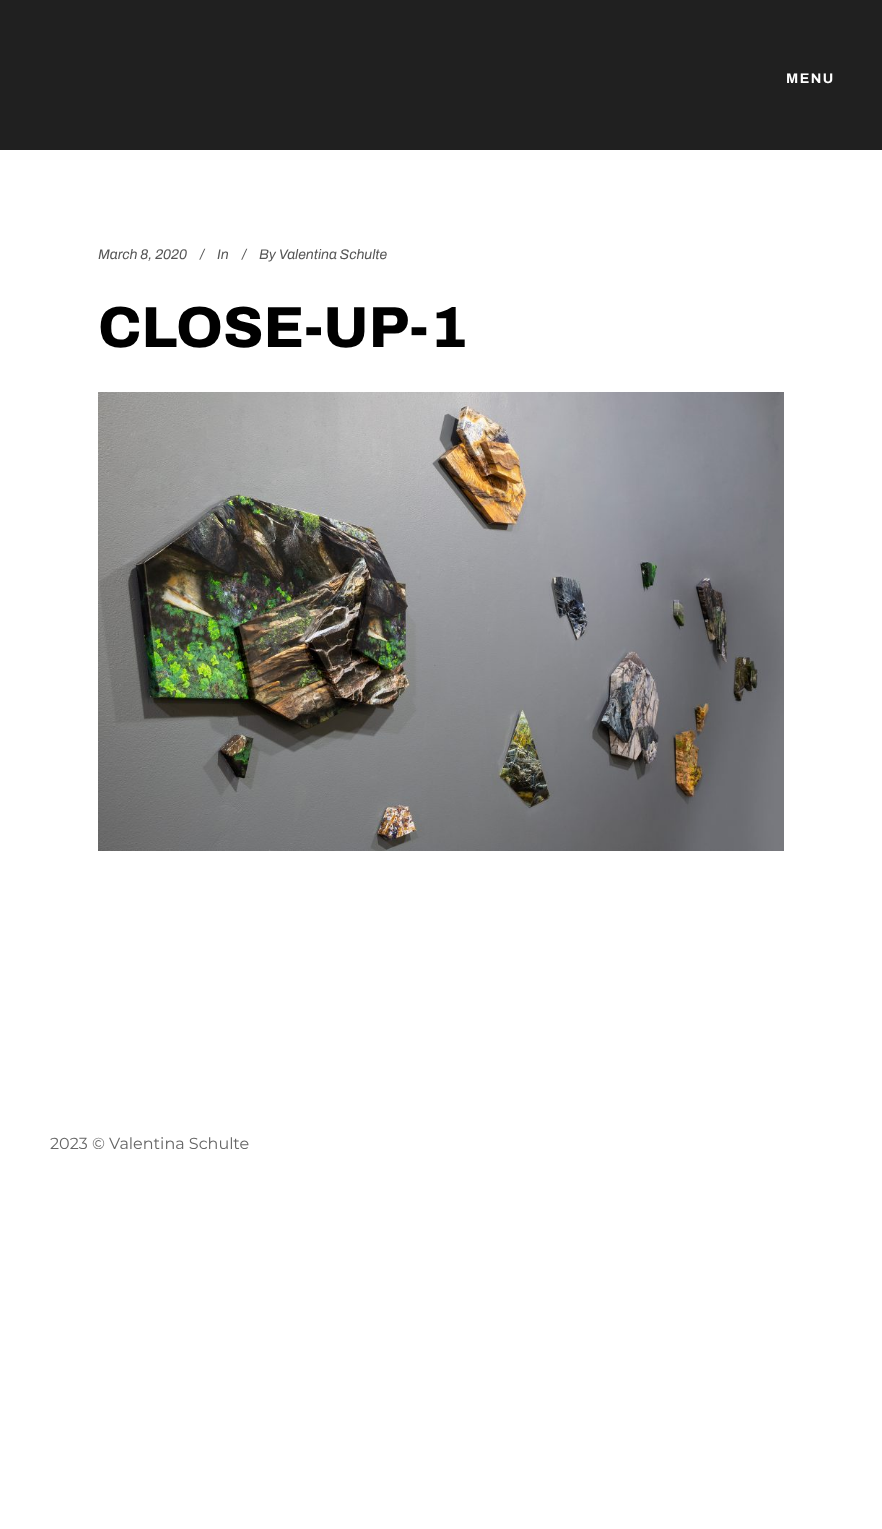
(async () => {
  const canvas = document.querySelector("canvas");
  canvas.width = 882;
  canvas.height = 1529;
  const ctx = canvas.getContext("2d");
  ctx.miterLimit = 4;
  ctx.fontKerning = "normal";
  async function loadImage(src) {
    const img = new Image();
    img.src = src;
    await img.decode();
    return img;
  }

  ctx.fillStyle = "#ffffff";
  ctx.fillRect(0, 0, 882, 1529);
  ctx.fillStyle = "#202020";
  ctx.fillRect(0, 0, 882, 150);
  ctx.drawImage(await loadImage("img/1.png"), 98, 392, 686, 459);
  ctx.letterSpacing = "1.5px";
  ctx.font = "bold 14px Archivo";
  ctx.fillStyle = "#ffffff";
  ctx.fillText("MENU", 786, 83);
  ctx.letterSpacing = "0px";
  ctx.font = "italic 14px Archivo";
  ctx.fillStyle = "#565656";
  for (const [text, x, y] of [
    ["March 8, 2020", 98, 259],
    ["/", 200, 259],
    ["In", 217, 259],
    ["/", 242, 259],
    ["By Valentina Schulte", 259, 259],
  ]) {
    ctx.fillText(text, x, y);
  }
  ctx.font = "800 58px Archivo";
  ctx.fillStyle = "#000000";
  ctx.fillText("CLOSE-UP-1", 98, 347);
  ctx.font = "16px Montserrat";
  ctx.fillStyle = "#666666";
  ctx.fillText("2023 © Valentina Schulte", 50, 1149);
})();
